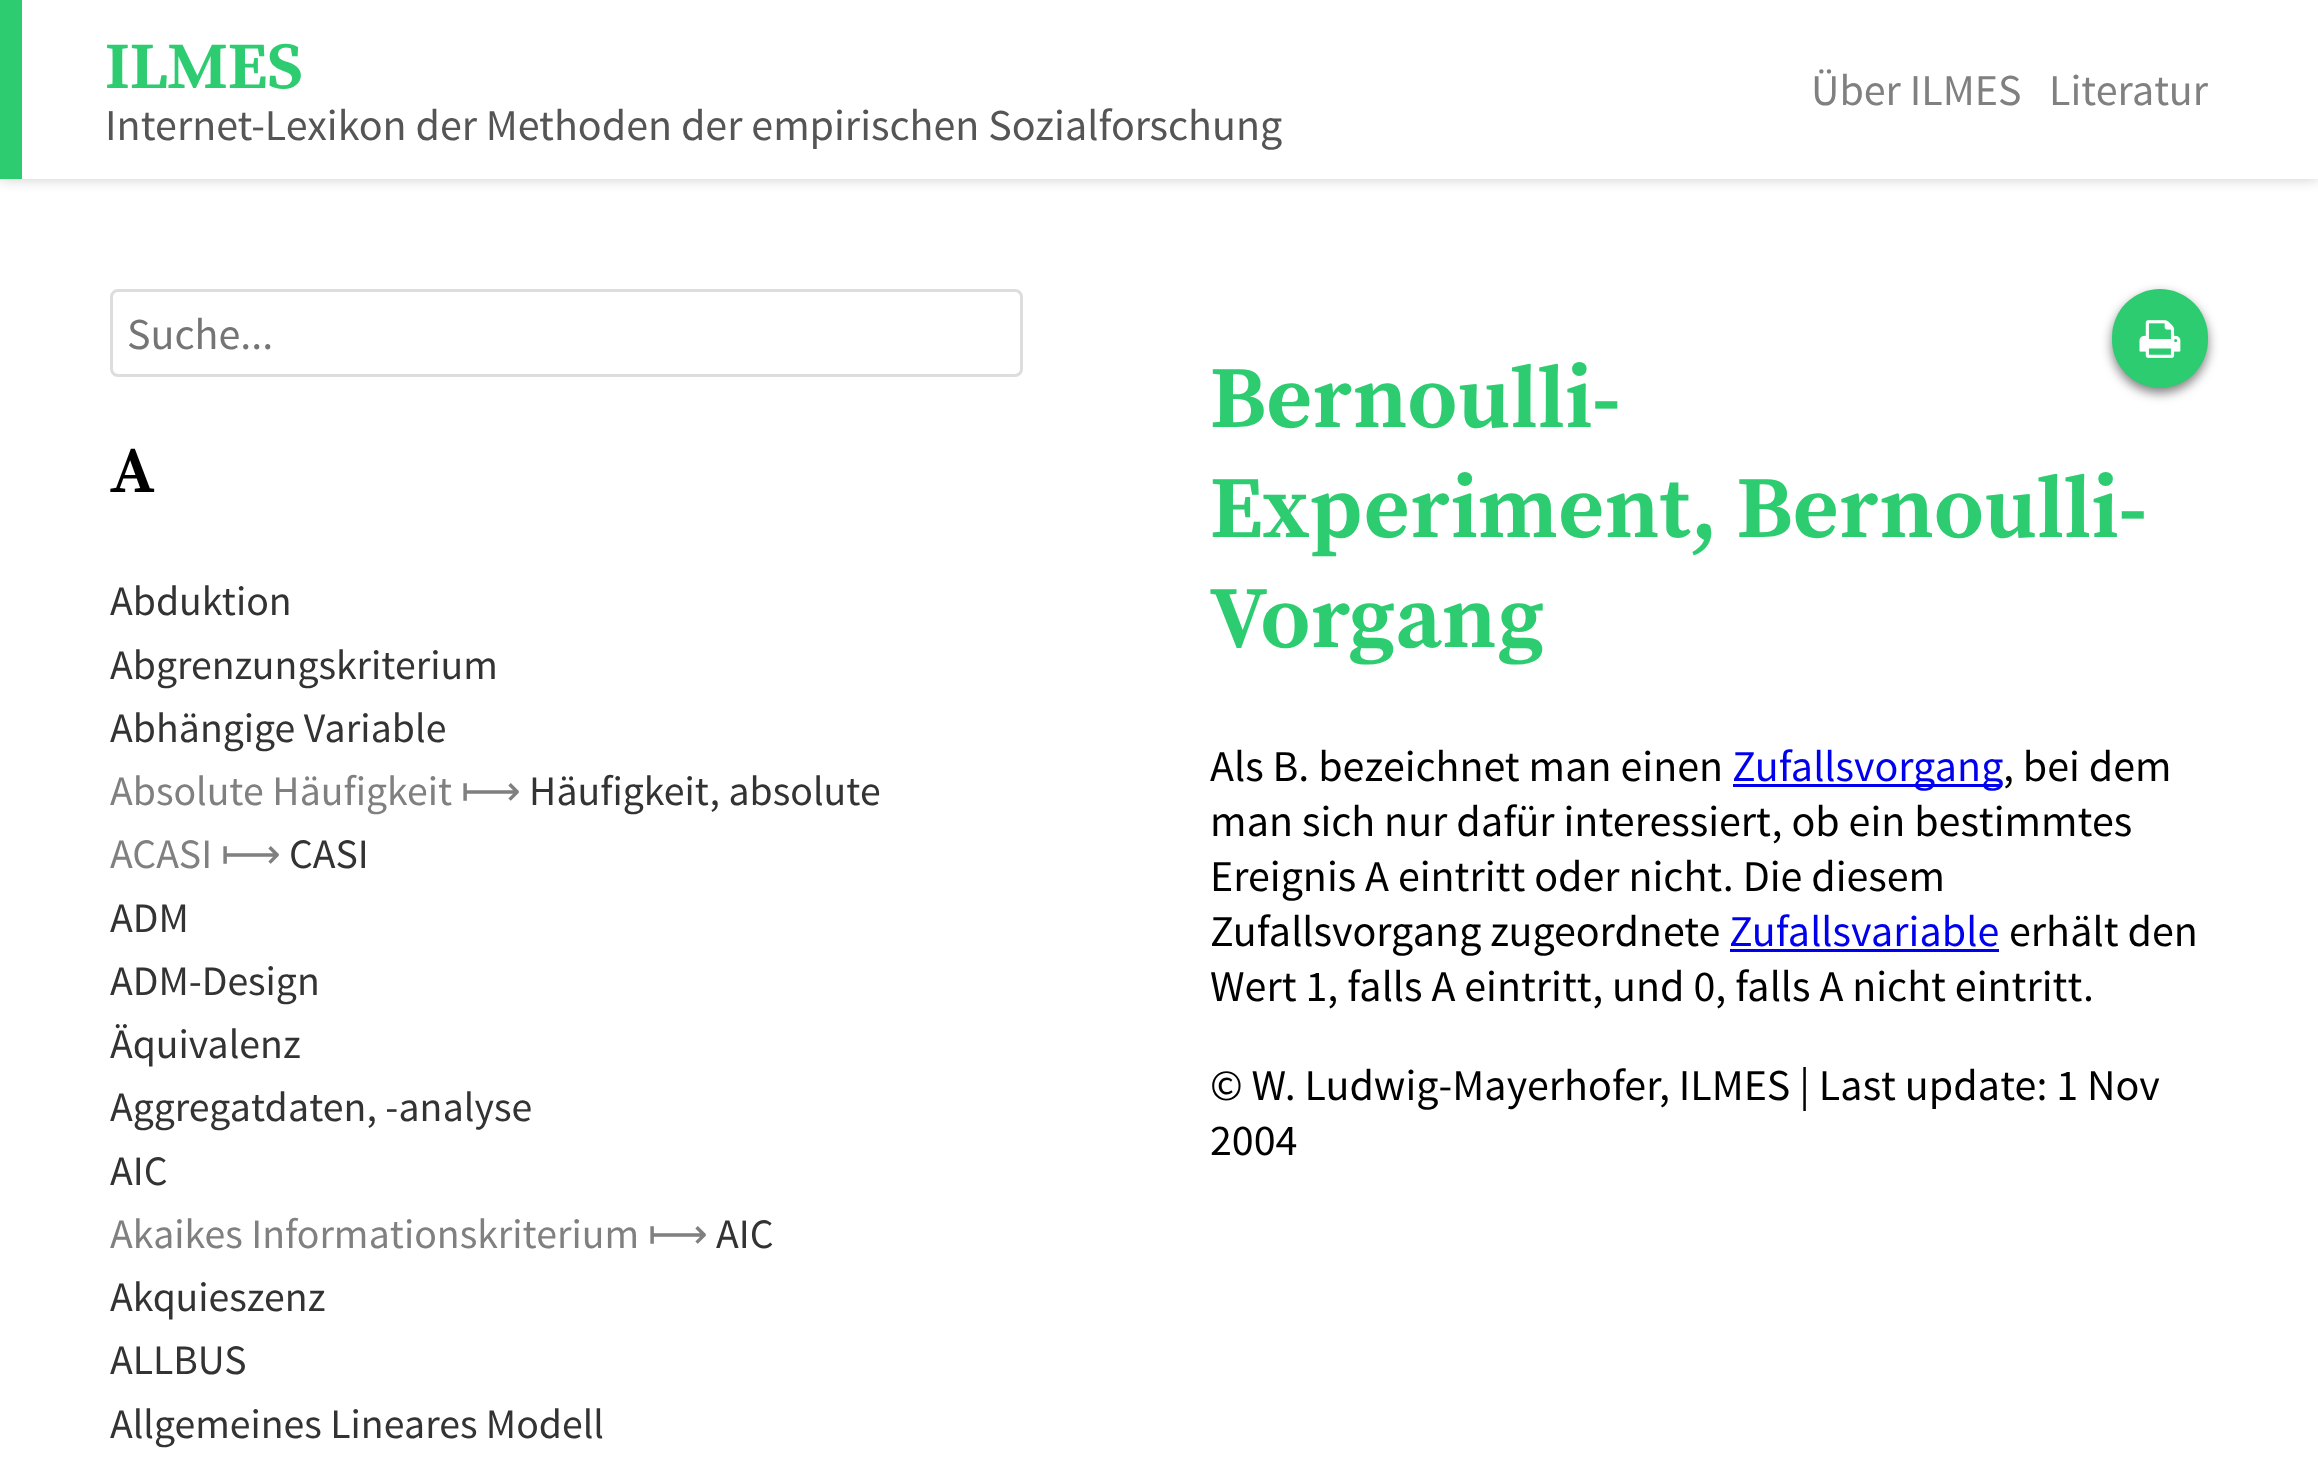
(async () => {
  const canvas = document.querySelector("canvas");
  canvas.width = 2318;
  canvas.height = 1458;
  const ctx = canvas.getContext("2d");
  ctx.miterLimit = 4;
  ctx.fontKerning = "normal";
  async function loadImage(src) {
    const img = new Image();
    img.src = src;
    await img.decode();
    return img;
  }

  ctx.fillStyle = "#ffffff";
  ctx.fillRect(0, 0, 2318, 1458);
  ctx.fillStyle = "rgba(0, 0, 0, 0.2)";
  ctx.filter = "blur(7px)";
  ctx.beginPath();
  ctx.rect(0, 0, 2318, 179);
  ctx.fill();
  ctx.filter = "none";
  ctx.fillStyle = "#ffffff";
  ctx.fillRect(22, 0, 2296, 179);
  ctx.fillStyle = "#2ecc71";
  ctx.fillRect(0, 0, 22, 179);
  ctx.beginPath();
  ctx.roundRect(111.5, 290.5, 910, 85, 6.5);
  ctx.strokeStyle = "#dddddd";
  ctx.lineWidth = 3;
  ctx.stroke();
  ctx.fillStyle = "rgba(0, 0, 0, 0.5)";
  ctx.filter = "blur(5.5px)";
  ctx.beginPath();
  ctx.roundRect(2112, 294, 96, 99, 48);
  ctx.fill();
  ctx.filter = "none";
  ctx.fillStyle = "#2ecc71";
  ctx.beginPath();
  ctx.roundRect(2112, 289, 96, 99, 48);
  ctx.fill();
  ctx.drawImage(await loadImage("img/1.png"), 2139, 320, 42, 38);
  ctx.fillStyle = "#0000ee";
  ctx.fillRect(1733, 784, 269, 3);
  ctx.fillRect(1730, 949, 269, 3);
  ctx.font = "bold 66px Source Serif Pro";
  ctx.fillStyle = "#2ecc71";
  ctx.fillText("ILMES", 105, 88);
  ctx.font = "44px Source Sans Pro";
  ctx.fillStyle = "#555555";
  ctx.fillText("Internet-Lexikon der Methoden der empirischen Sozialforschung", 105, 140);
  ctx.fillStyle = "#808080";
  ctx.fillText("Über ILMES", 1811, 105);
  ctx.fillText("Literatur", 2049, 105);
  ctx.fillStyle = "#757575";
  ctx.fillText("Suche...", 127, 349);
  ctx.font = "bold 66px Source Serif Pro";
  ctx.fillStyle = "#000000";
  ctx.fillText("A", 110, 492);
  ctx.font = "41.75px Source Sans Pro";
  ctx.fillStyle = "#333333";
  for (const [text, x, y] of [
    ["Abduktion", 110, 615],
    ["Abgrenzungskriterium", 110, 679],
    ["Abhängige Variable", 110, 742],
  ]) {
    ctx.fillText(text, x, y);
  }
  ctx.fillStyle = "#808080";
  ctx.fillText("Absolute Häufigkeit", 110, 805);
  ctx.font = "41.75px DejaVu Sans";
  ctx.fillText("⟼", 461, 805);
  ctx.font = "41.75px Source Sans Pro";
  ctx.fillStyle = "#333333";
  ctx.fillText("Häufigkeit, absolute", 529, 805);
  ctx.fillStyle = "#808080";
  ctx.fillText("ACASI", 110, 868);
  ctx.font = "41.75px DejaVu Sans";
  ctx.fillText("⟼", 221, 868);
  ctx.font = "41.75px Source Sans Pro";
  ctx.fillStyle = "#333333";
  for (const [text, x, y] of [
    ["CASI", 289, 868],
    ["ADM", 110, 932],
    ["ADM-Design", 110, 995],
    ["Äquivalenz", 110, 1058],
    ["Aggregatdaten, -analyse", 110, 1121],
    ["AIC", 110, 1185],
  ]) {
    ctx.fillText(text, x, y);
  }
  ctx.fillStyle = "#808080";
  ctx.fillText("Akaikes Informationskriterium", 110, 1248);
  ctx.font = "41.75px DejaVu Sans";
  ctx.fillText("⟼", 648, 1248);
  ctx.font = "41.75px Source Sans Pro";
  ctx.fillStyle = "#333333";
  for (const [text, x, y] of [
    ["AIC", 716, 1248],
    ["Akquieszenz", 110, 1311],
    ["ALLBUS", 110, 1374],
    ["Allgemeines Lineares Modell", 110, 1438],
  ]) {
    ctx.fillText(text, x, y);
  }
  ctx.font = "bold 88px Source Serif Pro";
  ctx.fillStyle = "#2ecc71";
  for (const [text, x, y] of [
    ["Bernoulli-", 1210, 427],
    ["Experiment, Bernoulli-", 1210, 537],
    ["Vorgang", 1210, 647],
  ]) {
    ctx.fillText(text, x, y);
  }
  ctx.font = "44px Source Sans Pro";
  ctx.fillStyle = "#000000";
  ctx.fillText("Als B. bezeichnet man einen", 1210, 781);
  ctx.fillStyle = "#0000ee";
  ctx.fillText("Zufallsvorgang", 1732, 781);
  ctx.fillStyle = "#000000";
  for (const [text, x, y] of [
    [", bei dem", 2003, 781],
    ["man sich nur dafür interessiert, ob ein bestimmtes", 1210, 836],
    ["Ereignis A eintritt oder nicht. Die diesem", 1210, 891],
    ["Zufallsvorgang zugeordnete", 1210, 946],
  ]) {
    ctx.fillText(text, x, y);
  }
  ctx.fillStyle = "#0000ee";
  ctx.fillText("Zufallsvariable", 1729, 946);
  ctx.fillStyle = "#000000";
  for (const [text, x, y] of [
    ["erhält den", 2009, 946],
    ["Wert 1, falls A eintritt, und 0, falls A nicht eintritt.", 1210, 1001],
    ["© W. Ludwig-Mayerhofer, ILMES | Last update: 1 Nov", 1210, 1100],
    ["2004", 1210, 1155],
  ]) {
    ctx.fillText(text, x, y);
  }
})();
